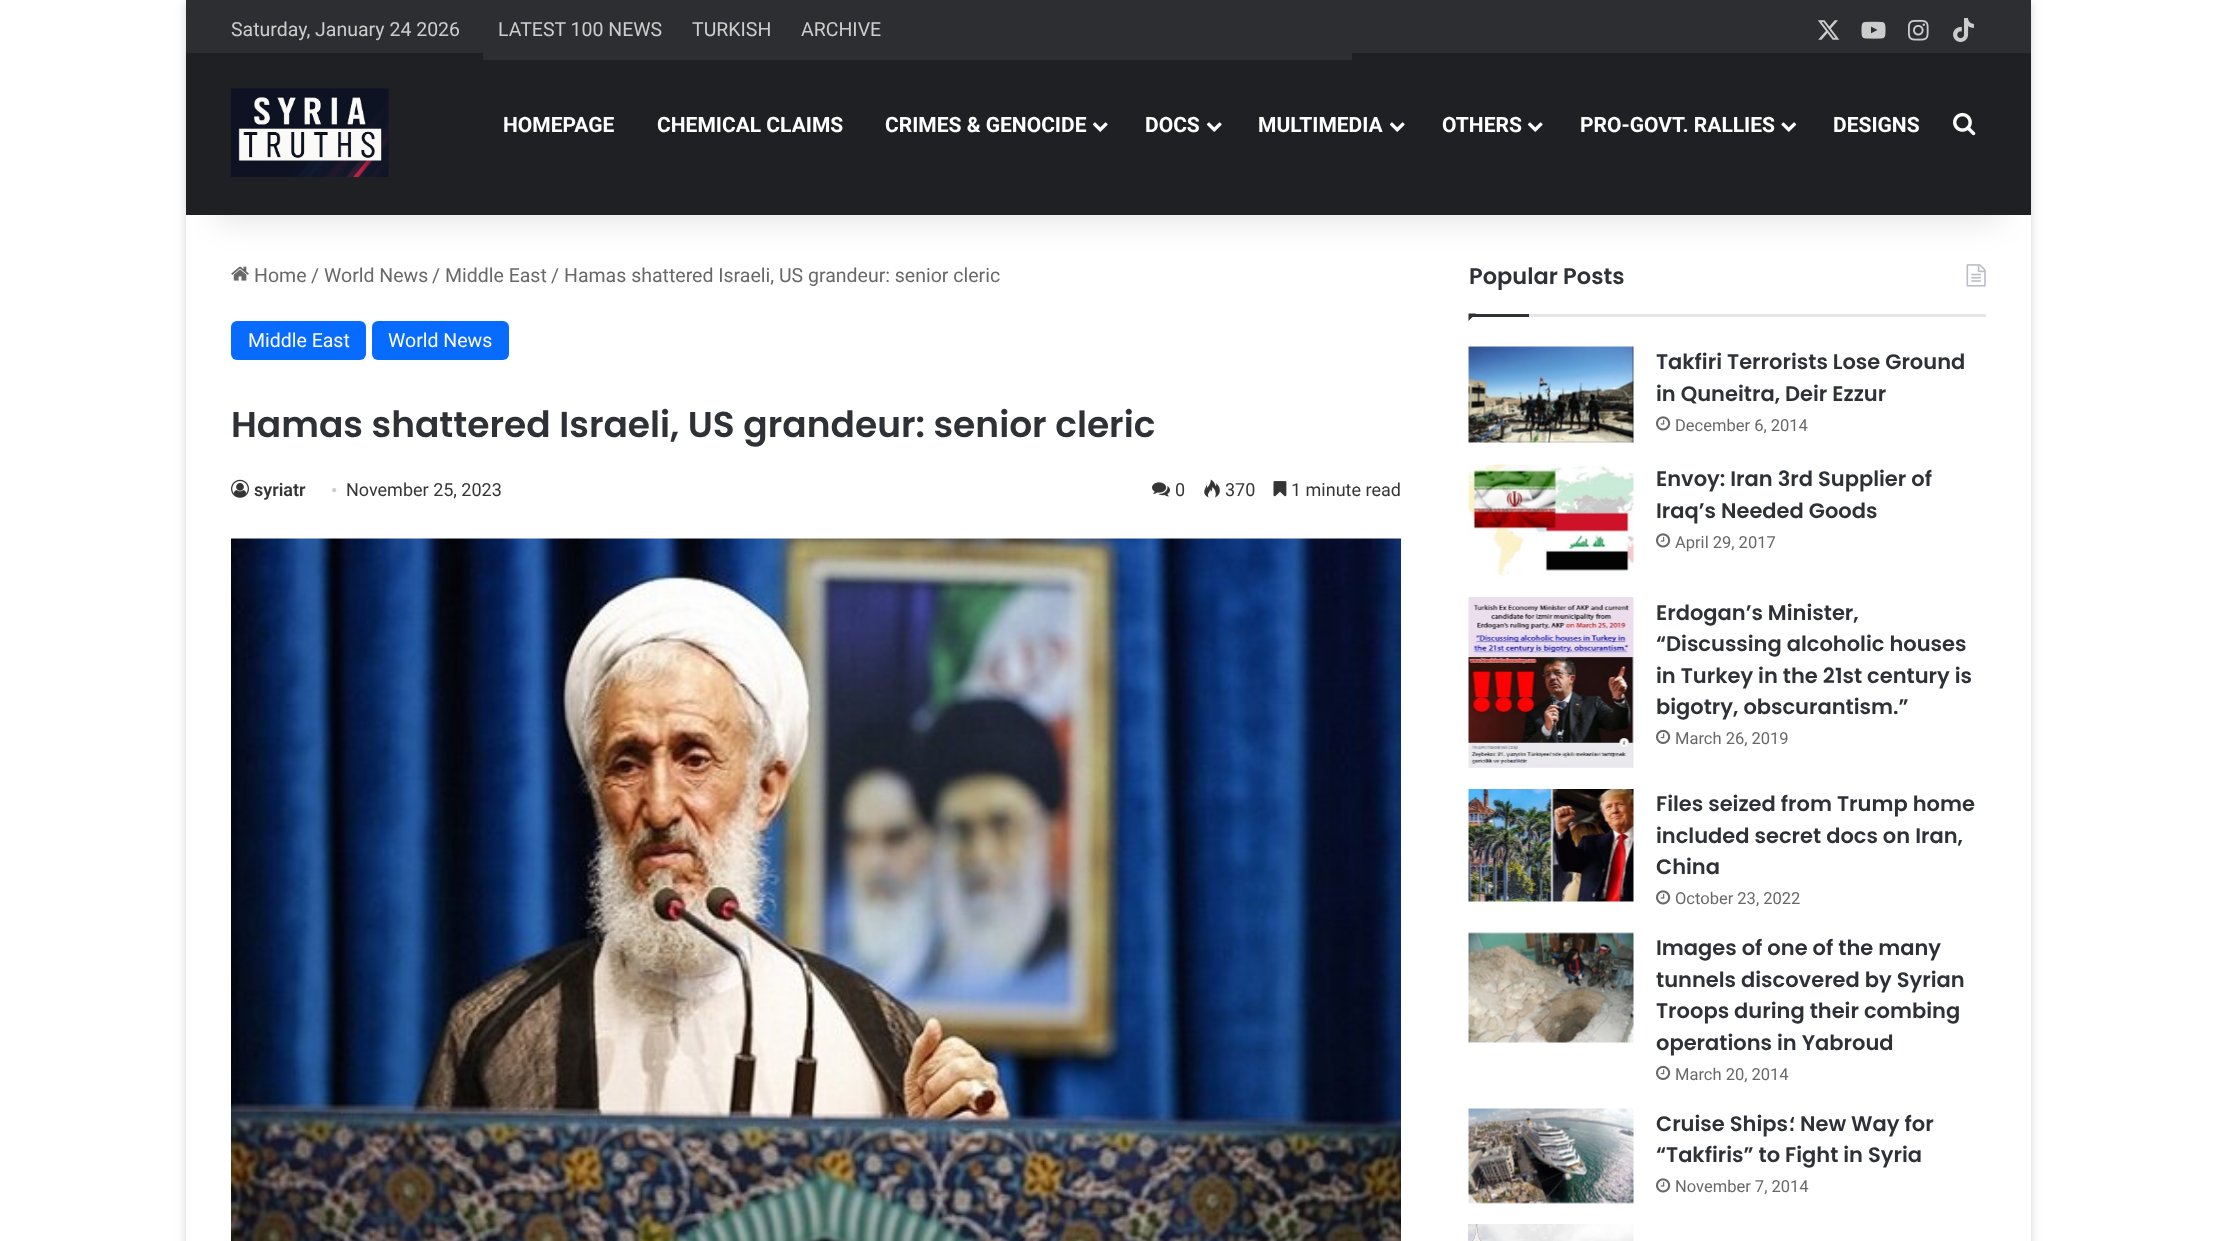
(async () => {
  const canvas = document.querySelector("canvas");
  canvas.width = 2217;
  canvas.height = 1241;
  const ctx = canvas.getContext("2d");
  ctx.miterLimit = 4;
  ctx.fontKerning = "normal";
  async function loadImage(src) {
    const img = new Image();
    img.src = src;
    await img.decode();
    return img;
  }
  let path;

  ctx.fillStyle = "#ffffff";
  ctx.fillRect(0, 0, 2217, 1241);
  ctx.save();
  path = new Path2D("M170 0H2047V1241H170ZM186 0H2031V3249H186Z");
  ctx.clip(path, "evenodd");
  ctx.fillStyle = "rgba(171, 171, 171, 0.5)";
  ctx.filter = "blur(5px)";
  ctx.beginPath();
  ctx.rect(186, 2, 1845, 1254);
  ctx.fill();
  ctx.filter = "none";
  ctx.restore();
  ctx.drawImage(await loadImage("img/9.png"), 231, 266, 18, 15);
  ctx.drawImage(await loadImage("img/15.png"), 1966, 264, 20, 23);
  ctx.fillStyle = "rgba(0, 0, 0, 0.1)";
  ctx.filter = "blur(15px)";
  ctx.beginPath();
  ctx.rect(216, 68, 1785, 154);
  ctx.fill();
  ctx.filter = "none";
  for (const [x, y, w, h, color] of [
    [186, 0, 1845, 53, "#2c2e32"],
    [186, 53, 1845, 162, "#1f2024"],
    [483, 53, 869, 7, "#2c2e32"],
  ]) {
    ctx.fillStyle = color;
    ctx.fillRect(x, y, w, h);
  }
  ctx.drawImage(await loadImage("img/1.png"), 1817, 20, 23, 20);
  ctx.drawImage(await loadImage("img/2.png"), 1861, 21, 25, 18);
  ctx.drawImage(await loadImage("img/3.png"), 1908, 19, 21, 22);
  ctx.drawImage(await loadImage("img/4.png"), 1953, 18, 21, 24);
  ctx.drawImage(await loadImage("img/5.png"), 231, 88, 158, 89);
  ctx.drawImage(await loadImage("img/6.png"), 1092, 122, 16, 10);
  ctx.drawImage(await loadImage("img/6.png"), 1206, 122, 16, 10);
  ctx.drawImage(await loadImage("img/6.png"), 1389, 122, 16, 10);
  ctx.drawImage(await loadImage("img/6.png"), 1527, 122, 16, 10);
  ctx.drawImage(await loadImage("img/7.png"), 1781, 122, 16, 10);
  ctx.drawImage(await loadImage("img/8.png"), 1953, 112, 23, 24);
  ctx.fillStyle = "#086bff";
  ctx.beginPath();
  ctx.roundRect(231, 321, 135, 39, 6);
  ctx.fill();
  ctx.beginPath();
  ctx.roundRect(372, 321, 137, 39, 6);
  ctx.fill();
  ctx.drawImage(await loadImage("img/10.png"), 231, 479, 18, 19);
  ctx.drawImage(await loadImage("img/11.png"), 1152, 482, 18, 15);
  ctx.drawImage(await loadImage("img/12.png"), 1204, 479, 16, 19);
  ctx.drawImage(await loadImage("img/13.png"), 1273, 481, 14, 16);
  ctx.drawImage(await loadImage("img/14.png"), 231, 538, 1170, 703);
  ctx.fillStyle = "#e6e6e6";
  ctx.fillRect(1529, 314, 457, 3);
  ctx.fillStyle = "#2e3136";
  path = new Path2D("M1468.5 313.5H1476L1468.5 321Z");
  ctx.fill(path);
  ctx.fillRect(1469, 314, 60, 3);
  ctx.drawImage(await loadImage("img/16.png"), 1468, 346, 166, 97);
  ctx.drawImage(await loadImage("img/17.png"), 1656, 416, 15, 15);
  ctx.drawImage(await loadImage("img/18.png"), 1468, 463, 166, 114);
  ctx.drawImage(await loadImage("img/17.png"), 1656, 533, 15, 15);
  ctx.drawImage(await loadImage("img/19.png"), 1468, 597, 166, 171);
  ctx.drawImage(await loadImage("img/20.png"), 1656, 729, 15, 15);
  ctx.drawImage(await loadImage("img/21.png"), 1468, 789, 166, 113);
  ctx.drawImage(await loadImage("img/17.png"), 1656, 890, 15, 15);
  ctx.drawImage(await loadImage("img/22.png"), 1468, 932, 166, 111);
  ctx.drawImage(await loadImage("img/20.png"), 1656, 1065, 15, 15);
  ctx.drawImage(await loadImage("img/23.png"), 1468, 1108, 166, 96);
  ctx.drawImage(await loadImage("img/17.png"), 1656, 1178, 15, 15);
  ctx.drawImage(await loadImage("img/24.png"), 1468, 1224, 166, 17);
  ctx.font = "19.5px Roboto";
  ctx.fillStyle = "#cdcdcd";
  for (const [text, x, y] of [
    ["Saturday, January 24 2026", 231, 36],
    ["LATEST 100 NEWS", 498, 36],
    ["TURKISH", 692, 36],
    ["ARCHIVE", 801, 36],
  ]) {
    ctx.fillText(text, x, y);
  }
  ctx.font = "bold 21px Roboto";
  ctx.fillStyle = "#ffffff";
  for (const [text, x, y] of [
    ["HOMEPAGE", 503, 132],
    ["CHEMICAL CLAIMS", 657, 132],
    ["CRIMES & GENOCIDE", 885, 132],
    ["DOCS", 1145, 132],
    ["MULTIMEDIA", 1258, 132],
    ["OTHERS", 1442, 132],
    ["PRO-GOVT. RALLIES", 1580, 132],
    ["DESIGNS", 1833, 132],
  ]) {
    ctx.fillText(text, x, y);
  }
  ctx.font = "19.5px Roboto";
  ctx.fillStyle = "#686868";
  for (const [text, x, y] of [
    ["Home", 254, 282],
    ["/", 311, 282],
    ["World News", 324, 282],
    ["/", 432, 282],
    ["Middle East", 445, 282],
    ["/", 551, 282],
    ["Hamas shattered Israeli, US grandeur: senior cleric", 564, 282],
  ]) {
    ctx.fillText(text, x, y);
  }
  ctx.fillStyle = "#ffffff";
  ctx.fillText("Middle East", 248, 347);
  ctx.fillText("World News", 388, 347);
  ctx.font = "600 36px Poppins";
  ctx.fillStyle = "#2e3136";
  ctx.fillText("Hamas shattered Israeli, US grandeur: senior cleric", 231, 437);
  ctx.font = "600 18px Roboto";
  ctx.fillStyle = "#353535";
  ctx.fillText("syriatr", 254, 496);
  ctx.font = "18px Liberation Serif";
  ctx.fillStyle = "#cdcdcd";
  ctx.fillText("•", 331, 496);
  ctx.font = "18px Roboto";
  ctx.fillStyle = "#353535";
  for (const [text, x, y] of [
    ["November 25, 2023", 346, 496],
    ["0", 1175, 496],
    ["370", 1225, 496],
    ["1 minute read", 1291, 496],
  ]) {
    ctx.fillText(text, x, y);
  }
  ctx.font = "600 22.5px Poppins";
  ctx.fillStyle = "#2e3136";
  ctx.fillText("Popular Posts", 1469, 284);
  ctx.font = "600 21px Poppins";
  ctx.fillText("Takfiri Terrorists Lose Ground", 1656, 369);
  ctx.fillText("in Quneitra, Deir Ezzur", 1656, 401);
  ctx.font = "16.5px Roboto";
  ctx.fillStyle = "#686868";
  ctx.fillText("December 6, 2014", 1675, 431);
  ctx.font = "600 21px Poppins";
  ctx.fillStyle = "#2e3136";
  ctx.fillText("Envoy: Iran 3rd Supplier of", 1656, 486);
  ctx.fillText("Iraq’s Needed Goods", 1656, 518);
  ctx.font = "16.5px Roboto";
  ctx.fillStyle = "#686868";
  ctx.fillText("April 29, 2017", 1675, 548);
  ctx.font = "600 21px Poppins";
  ctx.fillStyle = "#2e3136";
  for (const [text, x, y] of [
    ["Erdogan’s Minister,", 1656, 620],
    ["“Discussing alcoholic houses", 1656, 651],
    ["in Turkey in the 21st century is", 1656, 683],
    ["bigotry, obscurantism.”", 1656, 714],
  ]) {
    ctx.fillText(text, x, y);
  }
  ctx.font = "16.5px Roboto";
  ctx.fillStyle = "#686868";
  ctx.fillText("March 26, 2019", 1675, 744);
  ctx.font = "600 21px Poppins";
  ctx.fillStyle = "#2e3136";
  for (const [text, x, y] of [
    ["Files seized from Trump home", 1656, 811],
    ["included secret docs on Iran,", 1656, 843],
    ["China", 1656, 874],
  ]) {
    ctx.fillText(text, x, y);
  }
  ctx.font = "16.5px Roboto";
  ctx.fillStyle = "#686868";
  ctx.fillText("October 23, 2022", 1675, 904);
  ctx.font = "600 21px Poppins";
  ctx.fillStyle = "#2e3136";
  for (const [text, x, y] of [
    ["Images of one of the many", 1656, 955],
    ["tunnels discovered by Syrian", 1656, 987],
    ["Troops during their combing", 1656, 1018],
    ["operations in Yabroud", 1656, 1050],
  ]) {
    ctx.fillText(text, x, y);
  }
  ctx.font = "16.5px Roboto";
  ctx.fillStyle = "#686868";
  ctx.fillText("March 20, 2014", 1675, 1080);
  ctx.font = "600 21px Poppins";
  ctx.fillStyle = "#2e3136";
  ctx.fillText("Cruise Ships", 1656, 1131);
  ctx.direction = "rtl";
  ctx.font = "bold 21px DejaVu Sans";
  ctx.fillText("؛", 1795, 1131);
  ctx.direction = "ltr";
  ctx.font = "600 21px Poppins";
  ctx.fillText("New Way for", 1800, 1131);
  ctx.fillText("“Takfiris” to Fight in Syria", 1656, 1162);
  ctx.font = "16.5px Roboto";
  ctx.fillStyle = "#686868";
  ctx.fillText("November 7, 2014", 1675, 1192);
})();
